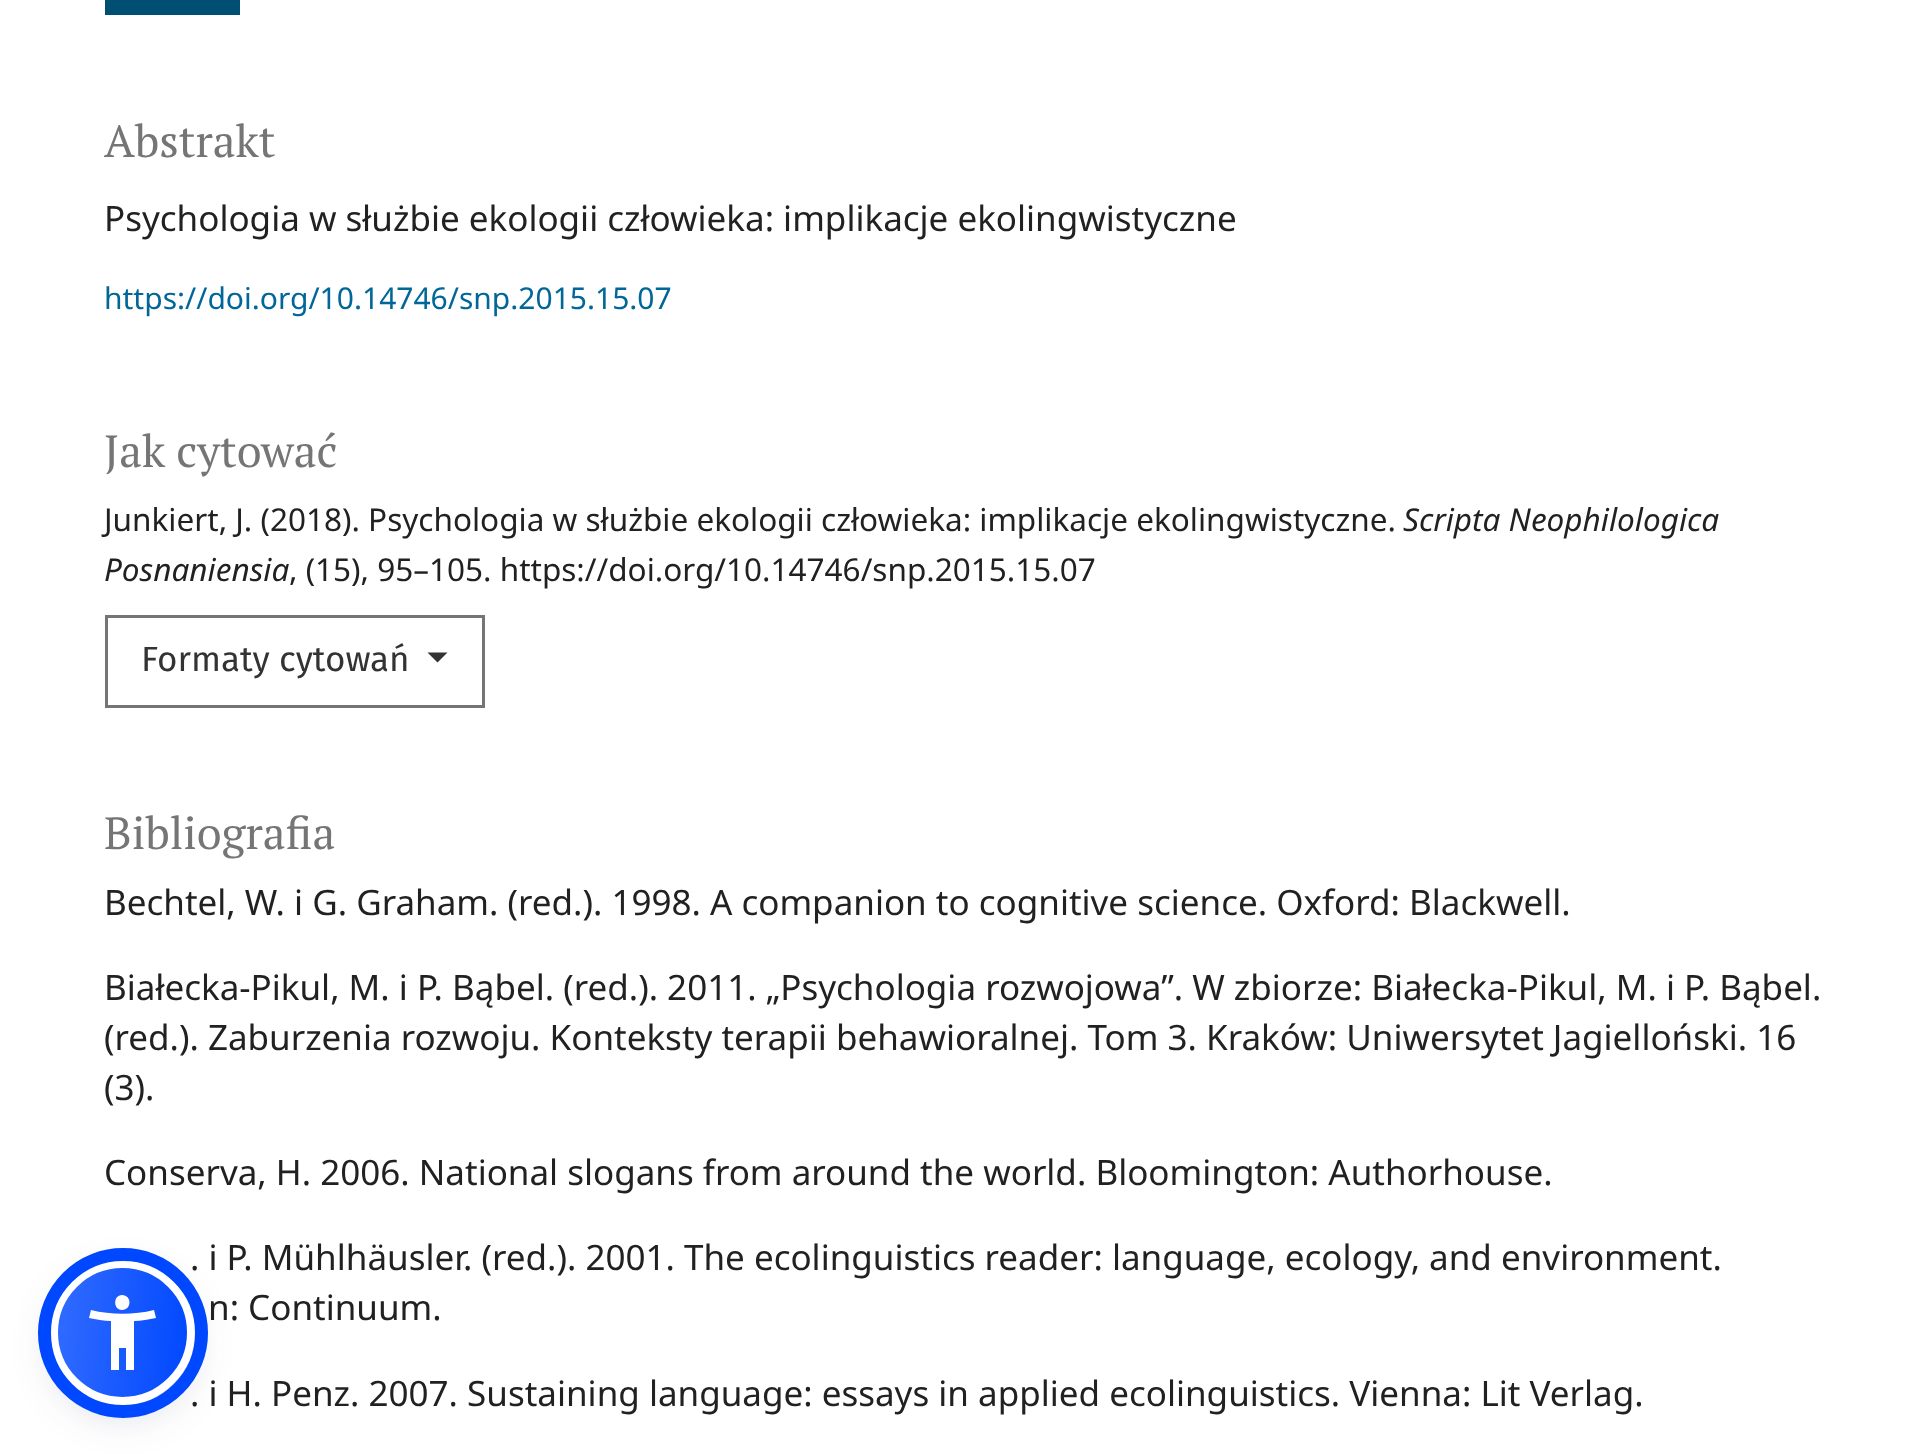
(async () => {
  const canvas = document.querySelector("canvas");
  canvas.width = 1932;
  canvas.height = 1454;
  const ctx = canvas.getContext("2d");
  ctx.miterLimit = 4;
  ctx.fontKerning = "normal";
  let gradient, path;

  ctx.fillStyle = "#ffffff";
  ctx.fillRect(0, 0, 1932, 1454);
  ctx.fillStyle = "#014e73";
  ctx.fillRect(105, 0, 135, 15);
  ctx.strokeStyle = "#757575";
  ctx.lineWidth = 3;
  ctx.strokeRect(106.5, 616.5, 377, 90);
  ctx.fillStyle = "#333333";
  path = new Path2D("M427.5 652.5H447.5L437.5 662.5Z");
  ctx.fill(path);
  ctx.fillStyle = "rgba(93, 100, 148, 0.2)";
  ctx.filter = "blur(5px)";
  ctx.beginPath();
  ctx.roundRect(50, 1265, 145, 145, 72.5);
  ctx.fill();
  ctx.filter = "none";
  ctx.fillStyle = "rgba(37, 44, 97, 0.15)";
  ctx.filter = "blur(19px)";
  ctx.beginPath();
  ctx.roundRect(50, 1273, 145, 145, 72.5);
  ctx.fill();
  ctx.filter = "none";
  ctx.save();
  ctx.beginPath();
  ctx.roundRect(50, 1260, 145, 145, 72.5);
  ctx.clip();
  gradient = ctx.createLinearGradient(51, 1325, 194, 1340);
  gradient.addColorStop(0, "#326cff");
  gradient.addColorStop(1, "#0048ff");
  ctx.fillStyle = gradient;
  ctx.fillRect(58, 1268, 130, 130);
  ctx.restore();
  ctx.font = "45px PT Serif";
  ctx.fillStyle = "#757575";
  ctx.fillText("Abstrakt", 104, 157);
  ctx.font = "35px Noto Sans";
  ctx.fillStyle = "#212121";
  ctx.fillText("Psychologia w służbie ekologii człowieka: implikacje ekolingwistyczne", 104, 231);
  ctx.font = "30px Noto Sans";
  ctx.fillStyle = "#006798";
  ctx.fillText("https://doi.org/10.14746/snp.2015.15.07", 104, 309);
  ctx.font = "45px PT Serif";
  ctx.fillStyle = "#757575";
  ctx.fillText("Jak cytować", 104, 467);
  ctx.font = "31.5px Noto Sans";
  ctx.fillStyle = "#212121";
  ctx.fillText("Junkiert, J. (2018). Psychologia w służbie ekologii człowieka: implikacje ekolingwistyczne.", 104, 531);
  ctx.font = "italic 31.5px Noto Sans";
  ctx.fillText("Scripta Neophilologica", 1403, 531);
  ctx.fillText("Posnaniensia", 104, 581);
  ctx.font = "31.5px Noto Sans";
  ctx.fillText(", (15), 95–105. https://doi.org/10.14746/snp.2015.15.07", 289, 581);
  ctx.font = "35px Fira Sans";
  ctx.fillStyle = "#333333";
  ctx.fillText("Formaty cytowań", 141, 671);
  ctx.font = "45px PT Serif";
  ctx.fillStyle = "#757575";
  ctx.fillText("Bibliografia", 104, 849);
  ctx.font = "35px Noto Sans";
  ctx.fillStyle = "#212121";
  for (const [text, x, y] of [
    ["Bechtel, W. i G. Graham. (red.). 1998. A companion to cognitive science. Oxford: Blackwell.", 104, 915],
    ["Białecka-Pikul, M. i P. Bąbel. (red.). 2011. „Psychologia rozwojowa”. W zbiorze: Białecka-Pikul, M. i P. Bąbel.", 104, 1000],
    ["(red.). Zaburzenia rozwoju. Konteksty terapii behawioralnej. Tom 3. Kraków: Uniwersytet Jagielloński. 16", 104, 1050],
    ["(3).", 104, 1100],
    ["Conserva, H. 2006. National slogans from around the world. Bloomington: Authorhouse.", 104, 1185],
    [". i P. Mühlhäusler. (red.). 2001. The ecolinguistics reader: language, ecology, and environment.", 190, 1270],
    ["n: Continuum.", 208, 1320],
    [". i H. Penz. 2007. Sustaining language: essays in applied ecolinguistics. Vienna: Lit Verlag.", 190, 1406],
  ]) {
    ctx.fillText(text, x, y);
  }
  ctx.beginPath();
  ctx.arc(122.5, 1332.5, 68.5, 0, Math.PI * 2);
  ctx.strokeStyle = "#ffffff";
  ctx.lineWidth = 8;
  ctx.stroke();
  ctx.beginPath();
  ctx.arc(123, 1333, 78.5, 0, Math.PI * 2);
  ctx.strokeStyle = "#0048ff";
  ctx.lineWidth = 13;
  ctx.stroke();
  ctx.fillStyle = "#ffffff";
  path = new Path2D("M154 1310C134 1315 111 1315 91 1310L89 1318C96 1319 104 1321 111 1321V1370H119V1348H126V1370H134V1321C141 1321 149 1319 156 1318ZM122 1310C132 1310 132 1295 122 1295C113 1295 113 1310 122 1310Z");
  ctx.fill(path);
})();
